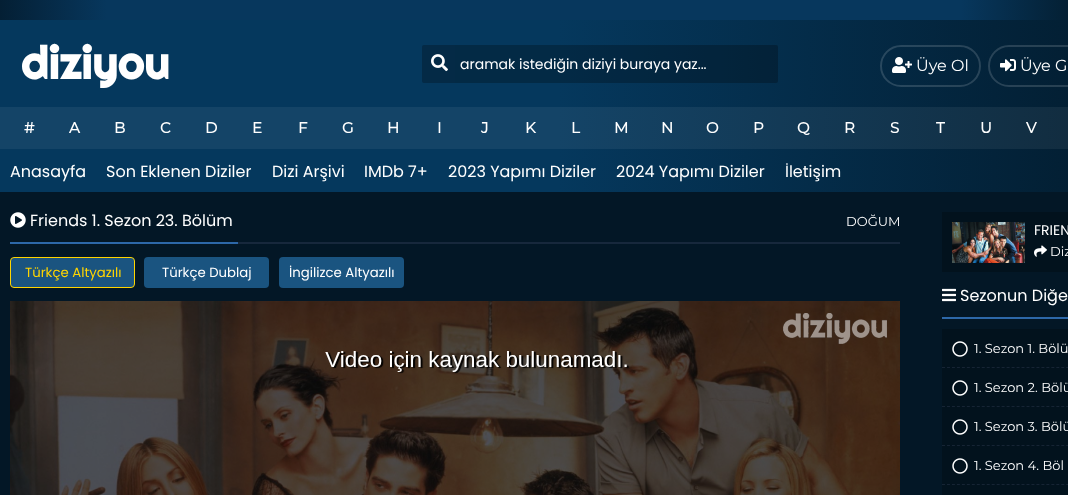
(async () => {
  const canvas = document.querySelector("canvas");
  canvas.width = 1068;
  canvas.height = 495;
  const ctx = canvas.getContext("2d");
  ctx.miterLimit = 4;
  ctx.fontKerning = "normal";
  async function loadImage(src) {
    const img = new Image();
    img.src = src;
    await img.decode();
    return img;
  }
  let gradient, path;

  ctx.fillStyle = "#ffffff";
  ctx.fillRect(0, 0, 1068, 495);
  gradient = ctx.createLinearGradient(0, 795, 1068, 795);
  gradient.addColorStop(0, "#041f34");
  gradient.addColorStop(0.1, "#07375d");
  gradient.addColorStop(0.9, "#07375d");
  gradient.addColorStop(1, "#042034");
  ctx.fillStyle = gradient;
  ctx.fillRect(0, 0, 1068, 20);
  ctx.fillStyle = "#031726";
  ctx.fillRect(0, 192, 1068, 303);
  gradient = ctx.createLinearGradient(0, 106, 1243, 106);
  gradient.addColorStop(0.45, "#05385d");
  gradient.addColorStop(1, "#021726");
  ctx.fillStyle = gradient;
  ctx.fillRect(0, 20, 1068, 172);
  gradient = ctx.createLinearGradient(0, 106, 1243, 106);
  gradient.addColorStop(0.45, "#144467");
  gradient.addColorStop(1, "#112533");
  ctx.fillStyle = gradient;
  ctx.fillRect(0, 107, 1068, 42);
  ctx.beginPath();
  ctx.roundRect(881, 46, 99, 40, 20);
  ctx.strokeStyle = "rgba(255, 255, 255, 0.15)";
  ctx.lineWidth = 2;
  ctx.stroke();
  ctx.drawImage(await loadImage("img/1.png"), 892, 57, 20, 16);
  ctx.beginPath();
  ctx.roundRect(989, 46, 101, 40, 20);
  ctx.stroke();
  ctx.drawImage(await loadImage("img/2.png"), 1000, 59, 16, 13);
  ctx.fillStyle = "#042a46";
  ctx.beginPath();
  ctx.roundRect(422, 45, 33, 38, [2, 0, 0, 2]);
  ctx.fill();
  ctx.drawImage(await loadImage("img/3.png"), 431, 54, 17, 18);
  ctx.fillStyle = "rgba(0, 0, 0, 0.25)";
  ctx.beginPath();
  ctx.roundRect(455, 45, 323, 38, [0, 2, 2, 0]);
  ctx.fill();
  ctx.fillStyle = "#17283c";
  ctx.fillRect(238, 242, 662, 2);
  ctx.fillStyle = "#2d68a9";
  ctx.fillRect(10, 242, 228, 2);
  ctx.drawImage(await loadImage("img/4.png"), 10, 212, 16, 16);
  ctx.fillStyle = "#1a5480";
  ctx.beginPath();
  ctx.roundRect(10.5, 257.5, 124, 30, 3.5);
  ctx.fill();
  ctx.strokeStyle = "#ffd500";
  ctx.lineWidth = 1;
  ctx.stroke();
  ctx.beginPath();
  ctx.roundRect(144, 257, 125, 31, 4);
  ctx.fill();
  ctx.beginPath();
  ctx.roundRect(279, 257, 125, 31, 4);
  ctx.fill();
  ctx.drawImage(await loadImage("img/5.png"), 10, 301, 890, 194);
  ctx.fillStyle = "#02121d";
  ctx.fillRect(942, 212, 126, 60);
  ctx.drawImage(await loadImage("img/6.png"), 952, 222, 73, 41);
  ctx.drawImage(await loadImage("img/7.png"), 1034, 245, 13, 12);
  ctx.fillStyle = "#2d68a9";
  ctx.fillRect(942, 317, 126, 2);
  ctx.drawImage(await loadImage("img/8.png"), 942, 288, 14, 14);
  ctx.fillStyle = "#02121d";
  ctx.fillRect(942, 329, 126, 166);
  path = new Path2D("M942 367.5H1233");
  ctx.strokeStyle = "#162434";
  ctx.setLineDash([3, 1.97]);
  ctx.stroke(path);
  ctx.drawImage(await loadImage("img/9.png"), 952, 341, 16, 16);
  path = new Path2D("M942 406.5H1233");
  ctx.stroke(path);
  ctx.drawImage(await loadImage("img/9.png"), 952, 380, 16, 16);
  path = new Path2D("M942 445.5H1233");
  ctx.stroke(path);
  ctx.drawImage(await loadImage("img/9.png"), 952, 419, 16, 16);
  path = new Path2D("M942 484.5H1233");
  ctx.stroke(path);
  ctx.drawImage(await loadImage("img/9.png"), 952, 458, 16, 16);
  ctx.letterSpacing = "0.25px";
  ctx.font = "bold 45px Righteous";
  ctx.fillStyle = "#ffffff";
  ctx.fillText("diziyou", 21, 79);
  ctx.letterSpacing = "0px";
  ctx.font = "100 16px Montserrat";
  ctx.fillText("Üye Ol", 916, 71);
  ctx.fillText("Üye G", 1020, 71);
  ctx.font = "bold 15px Montserrat";
  for (const [text, x, y] of [
    ["#", 24, 133],
    ["A", 69, 133],
    ["B", 114, 133],
    ["C", 160, 133],
    ["D", 205, 133],
    ["E", 252, 133],
    ["F", 298, 133],
    ["G", 342, 133],
    ["H", 387, 133],
    ["I", 437, 133],
    ["J", 481, 133],
    ["K", 525, 133],
    ["L", 571, 133],
    ["M", 614, 133],
    ["N", 661, 133],
    ["O", 706, 133],
    ["P", 753, 133],
    ["Q", 797, 133],
    ["R", 844, 133],
    ["S", 890, 133],
    ["T", 936, 133],
    ["U", 980, 133],
    ["V", 1026, 133],
  ]) {
    ctx.fillText(text, x, y);
  }
  ctx.font = "16px Poppins";
  for (const [text, x, y] of [
    ["Anasayfa", 10, 177],
    ["Son Eklenen Diziler", 106, 177],
    ["Dizi Arşivi", 272, 177],
    ["IMDb 7+", 364, 177],
    ["2023 Yapımı Diziler", 448, 177],
    ["2024 Yapımı Diziler", 616, 177],
    ["İletişim", 785, 177],
  ]) {
    ctx.fillText(text, x, y);
  }
  ctx.font = "14px Poppins";
  ctx.fillText("aramak istediğin diziyi buraya yaz...", 460, 69);
  ctx.font = "16px Poppins";
  ctx.fillText("Friends 1. Sezon 23. Bölüm", 30, 226);
  ctx.font = "100 13px Montserrat";
  ctx.fillText("DOĞUM", 846, 226);
  ctx.font = "13.25px Poppins";
  ctx.fillStyle = "#ffd500";
  ctx.fillText("Türkçe Altyazılı", 25, 277);
  ctx.fillStyle = "#ffffff";
  ctx.fillText("Türkçe Dublaj", 162, 277);
  ctx.fillText("İngilizce Altyazılı", 289, 277);
  ctx.font = "14px Poppins";
  ctx.fillText("FRIEN", 1034, 235);
  ctx.font = "100 13px Montserrat";
  ctx.fillText("Diz", 1050, 256);
  ctx.font = "16px Poppins";
  ctx.fillText("Sezonun Diğe", 960, 301);
  ctx.font = "100 13px Montserrat";
  for (const [text, x, y] of [
    ["1. Sezon 1. Bölü", 974, 353],
    ["1. Sezon 2. Bölü", 974, 392],
    ["1. Sezon 3. Bölü", 974, 431],
    ["1. Sezon 4. Böl", 974, 470],
  ]) {
    ctx.fillText(text, x, y);
  }
})();
